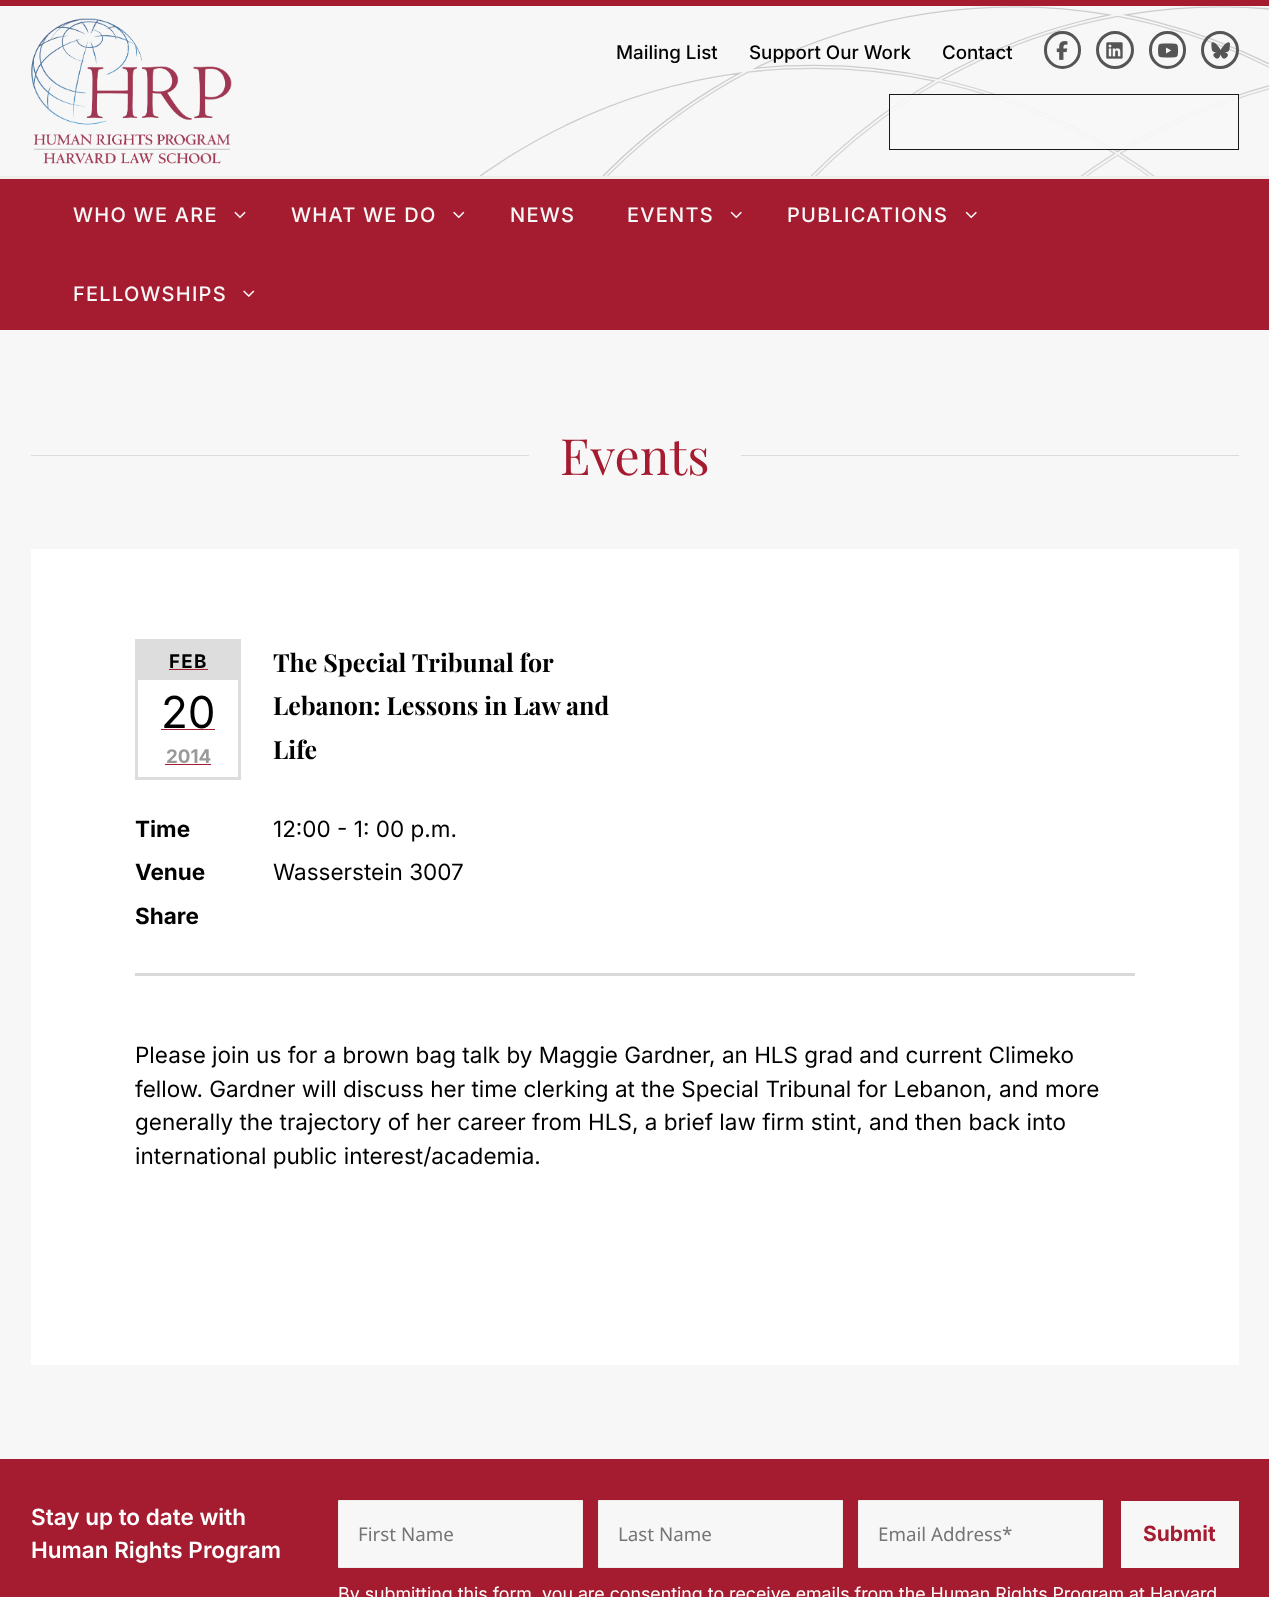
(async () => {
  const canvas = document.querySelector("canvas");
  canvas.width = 1269;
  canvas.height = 1597;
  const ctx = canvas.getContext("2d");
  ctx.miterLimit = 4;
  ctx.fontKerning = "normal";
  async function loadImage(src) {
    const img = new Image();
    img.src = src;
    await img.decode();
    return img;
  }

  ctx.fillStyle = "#f7f7f7";
  ctx.fillRect(0, 0, 1269, 1597);
  ctx.drawImage(await loadImage("img/1.png"), 479, 6, 790, 170);
  ctx.fillStyle = "#a51c30";
  ctx.fillRect(0, 0, 1269, 6);
  ctx.fillStyle = "#efeeeb";
  ctx.fillRect(0, 176, 1269, 3);
  ctx.drawImage(await loadImage("img/2.png"), 31, 18, 201, 146);
  ctx.beginPath();
  ctx.roundRect(1045.5, 32.5, 34, 35, 17);
  ctx.strokeStyle = "#555555";
  ctx.lineWidth = 3;
  ctx.stroke();
  ctx.drawImage(await loadImage("img/3.png"), 1056, 41, 12, 19);
  ctx.beginPath();
  ctx.arc(1115, 50, 17.5, 0, Math.PI * 2);
  ctx.stroke();
  ctx.drawImage(await loadImage("img/4.png"), 1106, 42, 17, 17);
  ctx.beginPath();
  ctx.roundRect(1150.5, 32.5, 34, 35, 17);
  ctx.stroke();
  ctx.drawImage(await loadImage("img/5.png"), 1158, 43, 21, 15);
  ctx.beginPath();
  ctx.arc(1220, 50, 17.5, 0, Math.PI * 2);
  ctx.stroke();
  ctx.drawImage(await loadImage("img/6.png"), 1211, 42, 19, 17);
  ctx.fillStyle = "rgba(247, 247, 247, 0.9)";
  ctx.fillRect(889, 94, 350, 56);
  ctx.strokeStyle = "rgba(0, 0, 0, 0.9)";
  ctx.lineWidth = 1;
  ctx.strokeRect(889.5, 94.5, 349, 55);
  ctx.fillStyle = "#a51c30";
  ctx.fillRect(0, 179, 1269, 151);
  ctx.drawImage(await loadImage("img/7.png"), 234, 211, 12, 8);
  ctx.drawImage(await loadImage("img/8.png"), 453, 211, 12, 8);
  ctx.drawImage(await loadImage("img/9.png"), 730, 211, 12, 8);
  ctx.drawImage(await loadImage("img/9.png"), 965, 211, 12, 8);
  ctx.drawImage(await loadImage("img/10.png"), 243, 290, 12, 7);
  for (const [x, y, w, h, color] of [
    [31, 455, 1208, 1, "#dbdbdb"],
    [529, 455, 212, 1, "#f7f7f7"],
    [31, 549, 1208, 816, "#ffffff"],
    [135, 973, 1000, 3, "#d9d9d7"],
  ]) {
    ctx.fillStyle = color;
    ctx.fillRect(x, y, w, h);
  }
  ctx.strokeStyle = "#dddddd";
  ctx.lineWidth = 3;
  ctx.strokeRect(136.5, 640.5, 103, 138);
  for (const [x, y, w, h, color] of [
    [138, 642, 100, 38, "#dddddd"],
    [169, 669, 39, 1, "#a51c30"],
    [161, 729, 54, 1, "#a51c30"],
    [165, 764, 46, 1, "#a51c30"],
    [0, 1459, 1269, 138, "#a51c30"],
  ]) {
    ctx.fillStyle = color;
    ctx.fillRect(x, y, w, h);
  }
  ctx.fillStyle = "#f7f7f7";
  ctx.beginPath();
  ctx.rect(338.5, 1500.5, 244, 67);
  ctx.fill();
  ctx.strokeStyle = "#efeeeb";
  ctx.lineWidth = 1;
  ctx.stroke();
  ctx.beginPath();
  ctx.rect(598.5, 1500.5, 244, 67);
  ctx.fill();
  ctx.stroke();
  ctx.beginPath();
  ctx.rect(858.5, 1500.5, 244, 67);
  ctx.fill();
  ctx.stroke();
  ctx.fillRect(1121, 1501, 118, 67);
  ctx.font = "500 18.75px Inter";
  ctx.fillStyle = "#000000";
  for (const [text, x, y] of [
    ["Mailing List", 616, 59],
    ["Support Our Work", 749, 59],
    ["Contact", 942, 59],
  ]) {
    ctx.fillText(text, x, y);
  }
  ctx.letterSpacing = "1.25px";
  ctx.font = "500 20px Inter";
  ctx.fillStyle = "#f7f7f7";
  for (const [text, x, y] of [
    ["WHO WE ARE", 73, 222],
    ["WHAT WE DO", 291, 222],
    ["NEWS", 510, 222],
    ["EVENTS", 627, 222],
    ["PUBLICATIONS", 787, 222],
    ["FELLOWSHIPS", 73, 301],
  ]) {
    ctx.fillText(text, x, y);
  }
  ctx.letterSpacing = "0px";
  ctx.font = "50px Playfair Display";
  ctx.fillStyle = "#a51c30";
  ctx.fillText("Events", 560, 475);
  ctx.letterSpacing = "1.25px";
  ctx.font = "bold 18.75px Inter";
  ctx.fillStyle = "#000000";
  ctx.fillText("FEB", 169, 668);
  ctx.letterSpacing = "0px";
  ctx.font = "44px Inter";
  ctx.fillText("20", 161, 728);
  ctx.font = "bold 18.75px Inter";
  ctx.fillStyle = "#9a9a9a";
  ctx.fillText("2014", 166, 763);
  ctx.font = "bold 25px Playfair Display";
  ctx.fillStyle = "#000000";
  for (const [text, x, y] of [
    ["The Special Tribunal for", 273, 672],
    ["Lebanon: Lessons in Law and", 273, 715],
    ["Life", 273, 759],
  ]) {
    ctx.fillText(text, x, y);
  }
  ctx.font = "bold 22.5px Inter";
  ctx.fillText("Time", 135, 837);
  ctx.font = "22.5px Inter";
  ctx.fillText("12:00 - 1: 00 p.m.", 273, 837);
  ctx.font = "bold 22.5px Inter";
  ctx.fillText("Venue", 135, 880);
  ctx.font = "22.5px Inter";
  ctx.fillText("Wasserstein 3007", 273, 880);
  ctx.font = "bold 22.5px Inter";
  ctx.fillText("Share", 135, 924);
  ctx.font = "22.5px Inter";
  for (const [text, x, y] of [
    ["Please join us for a brown bag talk by Maggie Gardner, an HLS grad and current Climeko", 135, 1063],
    ["fellow. Gardner will discuss her time clerking at the Special Tribunal for Lebanon, and more", 135, 1097],
    ["generally the trajectory of her career from HLS, a brief law firm stint, and then back into", 135, 1130],
    ["international public interest/academia.", 135, 1164],
  ]) {
    ctx.fillText(text, x, y);
  }
  ctx.font = "600 22.5px Inter";
  ctx.fillStyle = "#ffffff";
  ctx.fillText("Stay up to date with", 31, 1525);
  ctx.fillText("Human Rights Program", 31, 1558);
  ctx.font = "18.75px Noto Sans";
  ctx.fillStyle = "#757575";
  for (const [text, x, y] of [
    ["First Name", 358, 1541],
    ["Last Name", 618, 1541],
    ["Email Address*", 878, 1541],
  ]) {
    ctx.fillText(text, x, y);
  }
  ctx.font = "bold 21px Inter";
  ctx.fillStyle = "#a51c30";
  ctx.fillText("Submit", 1143, 1541);
  ctx.font = "17.8px Inter";
  ctx.fillStyle = "#ffffff";
  ctx.fillText("By submitting this form, you are consenting to receive emails from the Human Rights Program at Harvard", 338, 1600);
})();
